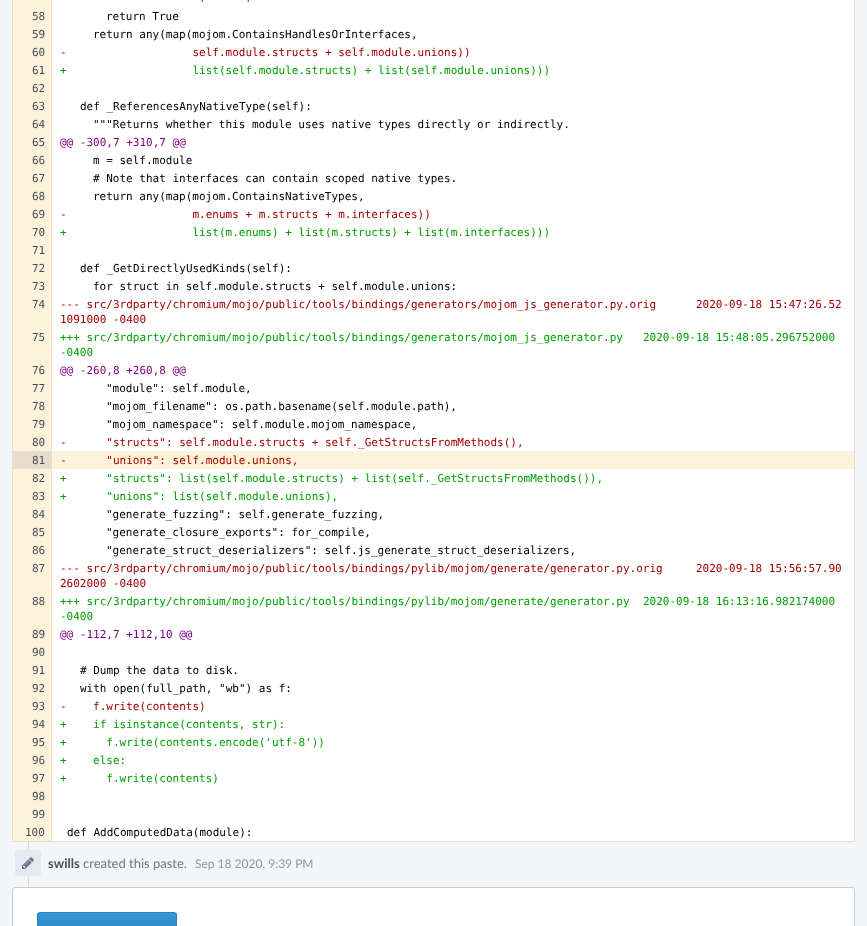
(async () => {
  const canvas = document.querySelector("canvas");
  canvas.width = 867;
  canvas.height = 926;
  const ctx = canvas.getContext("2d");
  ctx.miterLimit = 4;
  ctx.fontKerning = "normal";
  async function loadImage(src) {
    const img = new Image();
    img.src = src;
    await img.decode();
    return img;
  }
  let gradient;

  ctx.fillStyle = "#f3f5f7";
  ctx.fillRect(0, 0, 867, 926);
  ctx.strokeStyle = "#e9dbcd";
  ctx.strokeRect(12.5, -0.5, 842, 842);
  for (const [x, y, w, h, color] of [
    [13, 0, 38, 451, "#fdf3da"],
    [51, 0, 803, 7, "#ffffff"],
    [52, 7, 802, 444, "#ffffff"],
    [13, 451, 38, 18, "#e9dbcd"],
    [52, 451, 802, 18, "#fdf3da"],
    [13, 469, 38, 372, "#fdf3da"],
    [52, 469, 802, 372, "#ffffff"],
    [51, 0, 1, 841, "#e9dbcd"],
    [28, 842, 1, 45, "#d5d8e1"],
  ]) {
    ctx.fillStyle = color;
    ctx.fillRect(x, y, w, h);
  }
  ctx.fillStyle = "#e6e9f1";
  ctx.beginPath();
  ctx.roundRect(15, 850, 26, 26, 3);
  ctx.fill();
  ctx.drawImage(await loadImage("img/1.png"), 22, 857, 12, 12);
  ctx.fillStyle = "#ffffff";
  ctx.beginPath();
  ctx.roundRect(12.5, 887.5, 842, 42, 2.5);
  ctx.fill();
  ctx.strokeStyle = "#bfcfda";
  ctx.stroke();
  ctx.save();
  ctx.beginPath();
  ctx.roundRect(37, 912, 140, 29, 3);
  ctx.clip();
  gradient = ctx.createLinearGradient(107, 913, 107, 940);
  gradient.addColorStop(0, "#3498db");
  gradient.addColorStop(1, "#2980b9");
  ctx.fillStyle = gradient;
  ctx.fillRect(37, 913, 140, 13);
  ctx.restore();
  ctx.beginPath();
  ctx.roundRect(37.5, 912.5, 139, 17, 2.5);
  ctx.strokeStyle = "#2980b9";
  ctx.stroke();
  ctx.font = "11px DejaVu Sans Mono";
  ctx.fillStyle = "#00a000";
  ctx.fillText(".", 199, 2);
  ctx.fillText(".", 245, 2);
  ctx.fillStyle = "#464c5c";
  ctx.fillText("58", 32, 20);
  ctx.fillStyle = "#000000";
  ctx.fillText("return True", 106, 20);
  ctx.fillStyle = "#464c5c";
  ctx.fillText("59", 32, 38);
  ctx.fillStyle = "#000000";
  ctx.fillText("return any(map(mojom.ContainsHandlesOrInterfaces,", 93, 38);
  ctx.fillStyle = "#464c5c";
  ctx.fillText("60", 32, 56);
  ctx.fillStyle = "#a00000";
  ctx.fillText("-                   self.module.structs + self.module.unions))", 60, 56);
  ctx.fillStyle = "#464c5c";
  ctx.fillText("61", 32, 74);
  ctx.fillStyle = "#00a000";
  ctx.fillText("+                   list(self.module.structs) + list(self.module.unions)))", 60, 74);
  ctx.fillStyle = "#464c5c";
  ctx.fillText("62", 32, 92);
  ctx.fillText("63", 32, 110);
  ctx.fillStyle = "#000000";
  ctx.fillText("def _ReferencesAnyNativeType(self):", 80, 110);
  ctx.fillStyle = "#464c5c";
  ctx.fillText("64", 32, 128);
  ctx.fillStyle = "#000000";
  ctx.fillText("\"\"\"Returns whether this module uses native types directly or indirectly.", 93, 128);
  ctx.fillStyle = "#464c5c";
  ctx.fillText("65", 32, 146);
  ctx.fillStyle = "#800080";
  ctx.fillText("@@ -300,7 +310,7 @@", 60, 146);
  ctx.fillStyle = "#464c5c";
  ctx.fillText("66", 32, 164);
  ctx.fillStyle = "#000000";
  ctx.fillText("m = self.module", 93, 164);
  ctx.fillStyle = "#464c5c";
  ctx.fillText("67", 32, 182);
  ctx.fillStyle = "#000000";
  ctx.fillText("# Note that interfaces can contain scoped native types.", 93, 182);
  ctx.fillStyle = "#464c5c";
  ctx.fillText("68", 32, 200);
  ctx.fillStyle = "#000000";
  ctx.fillText("return any(map(mojom.ContainsNativeTypes,", 93, 200);
  ctx.fillStyle = "#464c5c";
  ctx.fillText("69", 32, 218);
  ctx.fillStyle = "#a00000";
  ctx.fillText("-                   m.enums + m.structs + m.interfaces))", 60, 218);
  ctx.fillStyle = "#464c5c";
  ctx.fillText("70", 32, 236);
  ctx.fillStyle = "#00a000";
  ctx.fillText("+                   list(m.enums) + list(m.structs) + list(m.interfaces)))", 60, 236);
  ctx.fillStyle = "#464c5c";
  ctx.fillText("71", 32, 254);
  ctx.fillText("72", 32, 272);
  ctx.fillStyle = "#000000";
  ctx.fillText("def _GetDirectlyUsedKinds(self):", 80, 272);
  ctx.fillStyle = "#464c5c";
  ctx.fillText("73", 32, 290);
  ctx.fillStyle = "#000000";
  ctx.fillText("for struct in self.module.structs + self.module.unions:", 93, 290);
  ctx.fillStyle = "#464c5c";
  ctx.fillText("74", 32, 308);
  ctx.fillStyle = "#a00000";
  for (const [text, x, y] of [
    ["--- src/3rdparty/chromium/mojo/public/tools/bindings/generators/mojom_js_generator.py.orig", 60, 308],
    ["2020-09-18 15:47:26.52", 696, 308],
    ["1091000 -0400", 60, 323],
  ]) {
    ctx.fillText(text, x, y);
  }
  ctx.fillStyle = "#464c5c";
  ctx.fillText("75", 32, 341);
  ctx.fillStyle = "#00a000";
  for (const [text, x, y] of [
    ["+++ src/3rdparty/chromium/mojo/public/tools/bindings/generators/mojom_js_generator.py", 60, 341],
    ["2020-09-18 15:48:05.296752000", 643, 341],
    ["-0400", 60, 356],
  ]) {
    ctx.fillText(text, x, y);
  }
  ctx.fillStyle = "#464c5c";
  ctx.fillText("76", 32, 374);
  ctx.fillStyle = "#800080";
  ctx.fillText("@@ -260,8 +260,8 @@", 60, 374);
  ctx.fillStyle = "#464c5c";
  ctx.fillText("77", 32, 392);
  ctx.fillStyle = "#000000";
  ctx.fillText("\"module\": self.module,", 106, 392);
  ctx.fillStyle = "#464c5c";
  ctx.fillText("78", 32, 410);
  ctx.fillStyle = "#000000";
  ctx.fillText("\"mojom_filename\": os.path.basename(self.module.path),", 106, 410);
  ctx.fillStyle = "#464c5c";
  ctx.fillText("79", 32, 428);
  ctx.fillStyle = "#000000";
  ctx.fillText("\"mojom_namespace\": self.module.mojom_namespace,", 106, 428);
  ctx.fillStyle = "#464c5c";
  ctx.fillText("80", 32, 446);
  ctx.fillStyle = "#a00000";
  ctx.fillText("-      \"structs\": self.module.structs + self._GetStructsFromMethods(),", 60, 446);
  ctx.fillStyle = "#464c5c";
  ctx.fillText("81", 32, 464);
  ctx.fillStyle = "#a00000";
  ctx.fillText("-      \"unions\": self.module.unions,", 60, 464);
  ctx.fillStyle = "#464c5c";
  ctx.fillText("82", 32, 482);
  ctx.fillStyle = "#00a000";
  ctx.fillText("+      \"structs\": list(self.module.structs) + list(self._GetStructsFromMethods()),", 60, 482);
  ctx.fillStyle = "#464c5c";
  ctx.fillText("83", 32, 500);
  ctx.fillStyle = "#00a000";
  ctx.fillText("+      \"unions\": list(self.module.unions),", 60, 500);
  ctx.fillStyle = "#464c5c";
  ctx.fillText("84", 32, 518);
  ctx.fillStyle = "#000000";
  ctx.fillText("\"generate_fuzzing\": self.generate_fuzzing,", 106, 518);
  ctx.fillStyle = "#464c5c";
  ctx.fillText("85", 32, 536);
  ctx.fillStyle = "#000000";
  ctx.fillText("\"generate_closure_exports\": for_compile,", 106, 536);
  ctx.fillStyle = "#464c5c";
  ctx.fillText("86", 32, 554);
  ctx.fillStyle = "#000000";
  ctx.fillText("\"generate_struct_deserializers\": self.js_generate_struct_deserializers,", 106, 554);
  ctx.fillStyle = "#464c5c";
  ctx.fillText("87", 32, 572);
  ctx.fillStyle = "#a00000";
  for (const [text, x, y] of [
    ["--- src/3rdparty/chromium/mojo/public/tools/bindings/pylib/mojom/generate/generator.py.orig", 60, 572],
    ["2020-09-18 15:56:57.90", 696, 572],
    ["2602000 -0400", 60, 587],
  ]) {
    ctx.fillText(text, x, y);
  }
  ctx.fillStyle = "#464c5c";
  ctx.fillText("88", 32, 605);
  ctx.fillStyle = "#00a000";
  for (const [text, x, y] of [
    ["+++ src/3rdparty/chromium/mojo/public/tools/bindings/pylib/mojom/generate/generator.py", 60, 605],
    ["2020-09-18 16:13:16.982174000", 643, 605],
    ["-0400", 60, 620],
  ]) {
    ctx.fillText(text, x, y);
  }
  ctx.fillStyle = "#464c5c";
  ctx.fillText("89", 32, 638);
  ctx.fillStyle = "#800080";
  ctx.fillText("@@ -112,7 +112,10 @@", 60, 638);
  ctx.fillStyle = "#464c5c";
  ctx.fillText("90", 32, 656);
  ctx.fillText("91", 32, 674);
  ctx.fillStyle = "#000000";
  ctx.fillText("# Dump the data to disk.", 80, 674);
  ctx.fillStyle = "#464c5c";
  ctx.fillText("92", 32, 692);
  ctx.fillStyle = "#000000";
  ctx.fillText("with open(full_path, \"wb\") as f:", 80, 692);
  ctx.fillStyle = "#464c5c";
  ctx.fillText("93", 32, 710);
  ctx.fillStyle = "#a00000";
  ctx.fillText("-    f.write(contents)", 60, 710);
  ctx.fillStyle = "#464c5c";
  ctx.fillText("94", 32, 728);
  ctx.fillStyle = "#00a000";
  ctx.fillText("+    if isinstance(contents, str):", 60, 728);
  ctx.fillStyle = "#464c5c";
  ctx.fillText("95", 32, 746);
  ctx.fillStyle = "#00a000";
  ctx.fillText("+      f.write(contents.encode('utf-8'))", 60, 746);
  ctx.fillStyle = "#464c5c";
  ctx.fillText("96", 32, 764);
  ctx.fillStyle = "#00a000";
  ctx.fillText("+    else:", 60, 764);
  ctx.fillStyle = "#464c5c";
  ctx.fillText("97", 32, 782);
  ctx.fillStyle = "#00a000";
  ctx.fillText("+      f.write(contents)", 60, 782);
  ctx.fillStyle = "#464c5c";
  for (const [text, x, y] of [
    ["98", 32, 800],
    ["99", 32, 818],
    ["100", 25, 836],
  ]) {
    ctx.fillText(text, x, y);
  }
  ctx.fillStyle = "#000000";
  ctx.fillText("def AddComputedData(module):", 67, 836);
  ctx.font = "bold 13px Lato";
  ctx.fillStyle = "#4b4d51";
  ctx.fillText("swills", 48, 868);
  ctx.font = "13px Lato";
  ctx.fillStyle = "#74777d";
  ctx.fillText("created this paste.", 83, 868);
  ctx.font = "12px Lato";
  ctx.fillStyle = "#92969d";
  ctx.fillText("Sep 18 2020, 9:39 PM", 195, 868);
})();
